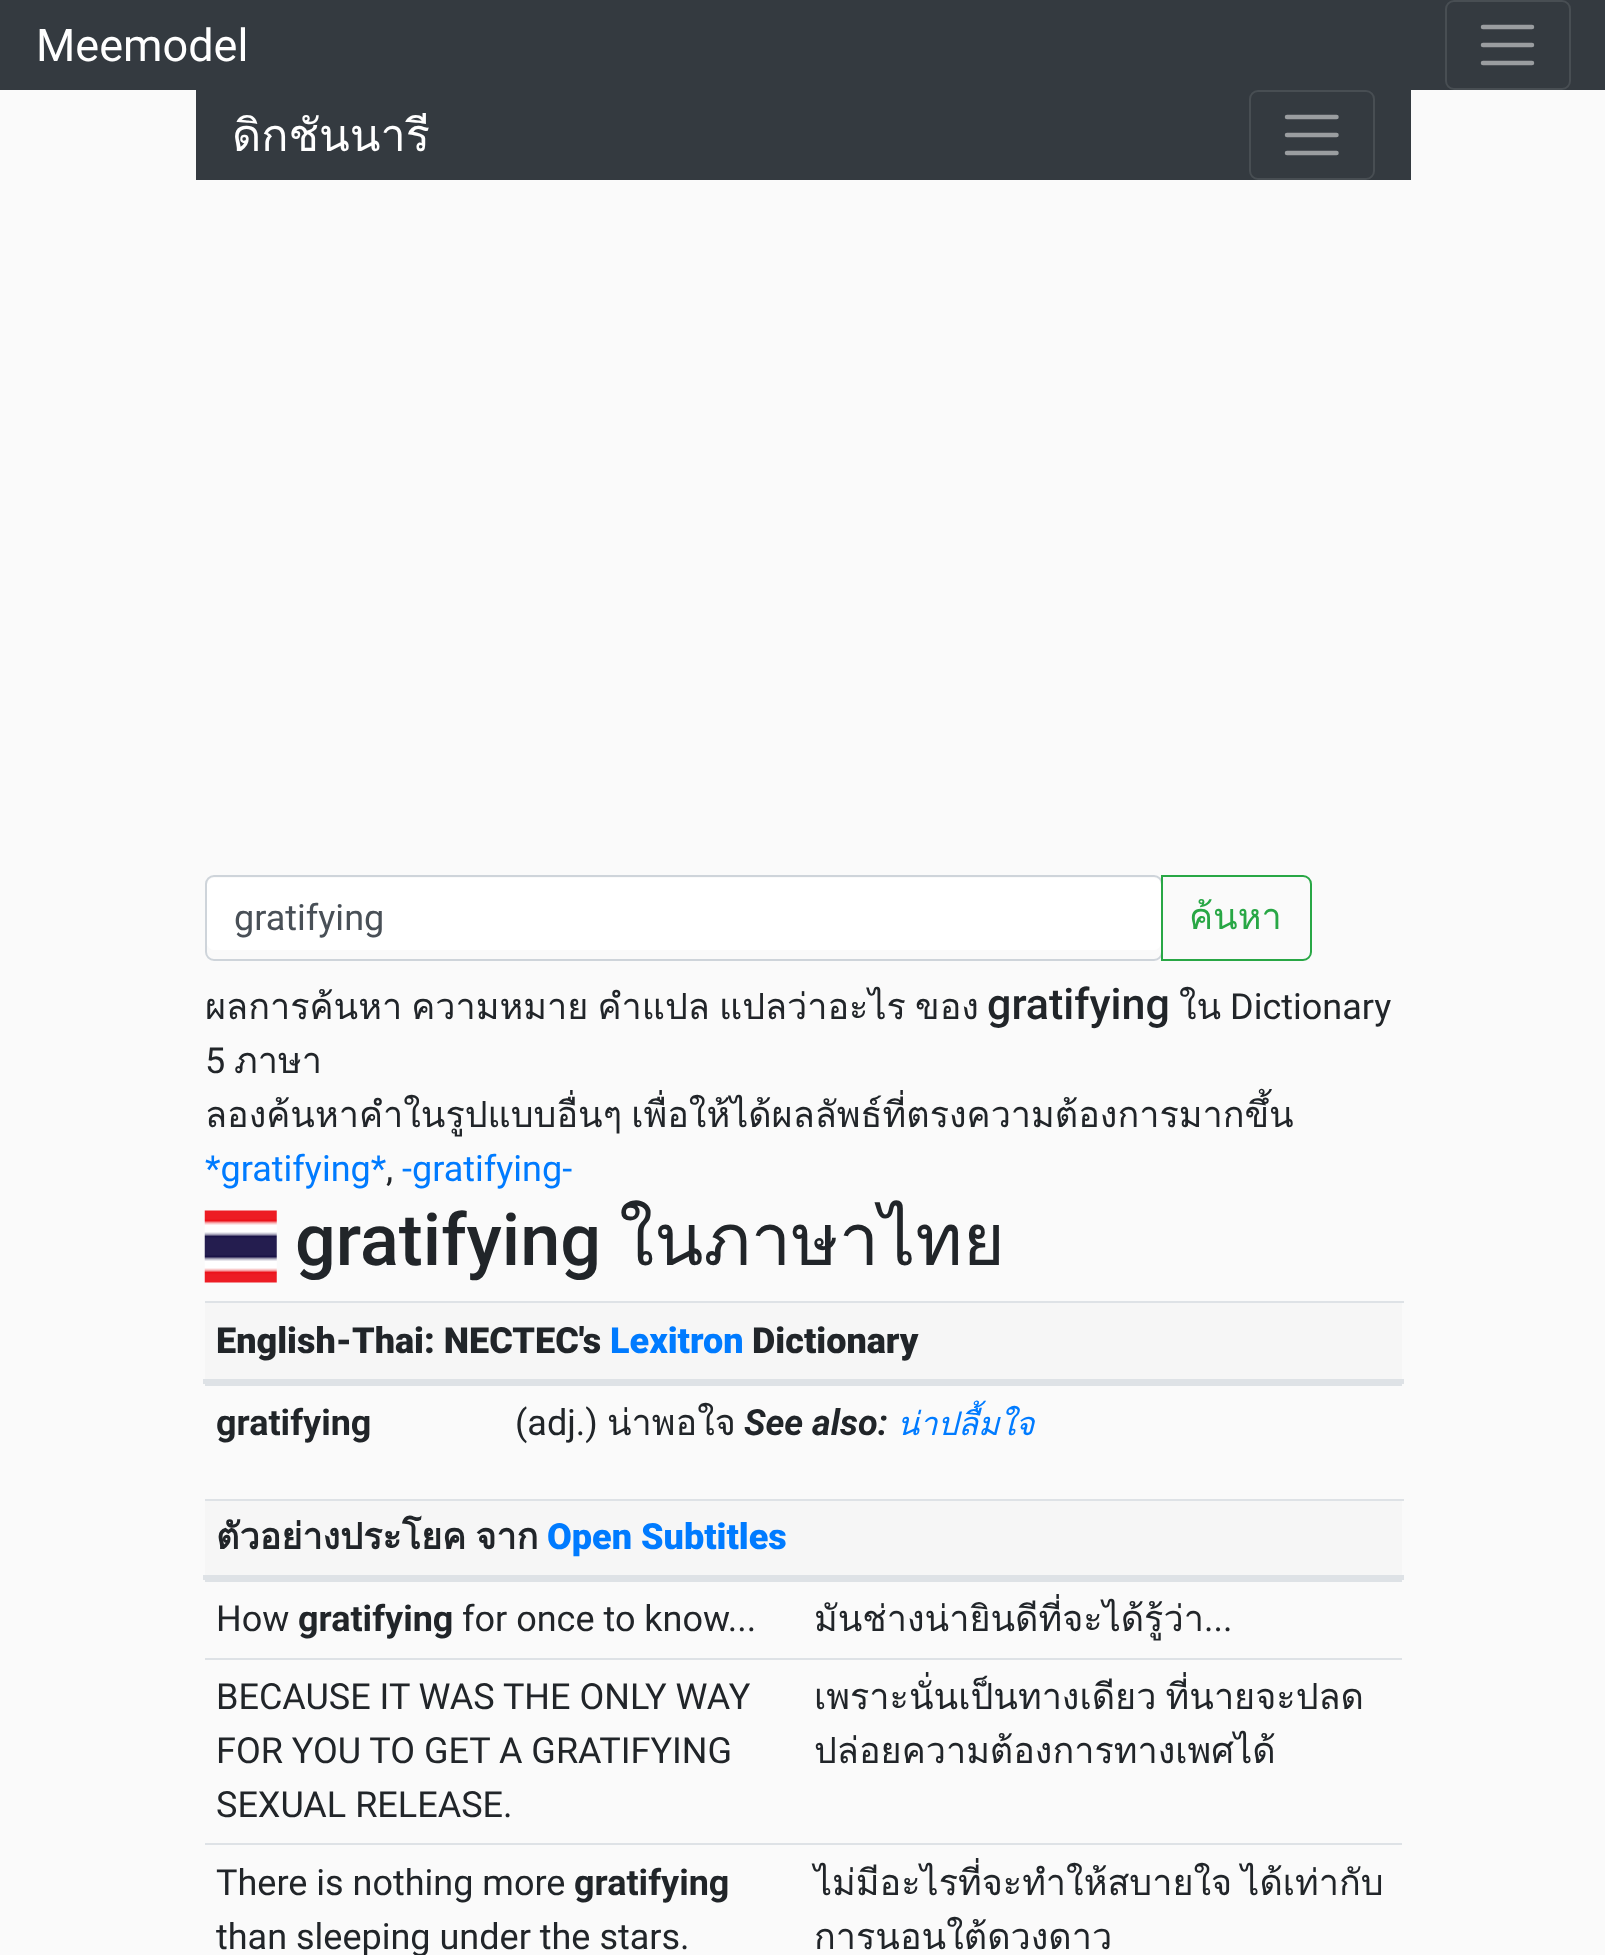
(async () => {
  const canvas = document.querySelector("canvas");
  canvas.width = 1605;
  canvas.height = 1955;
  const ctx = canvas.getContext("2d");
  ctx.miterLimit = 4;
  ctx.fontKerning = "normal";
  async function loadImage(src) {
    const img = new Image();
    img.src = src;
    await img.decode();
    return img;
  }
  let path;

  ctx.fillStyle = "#fafafa";
  ctx.fillRect(0, 0, 1605, 1955);
  ctx.fillStyle = "#343a40";
  ctx.fillRect(0, 0, 1605, 90);
  ctx.beginPath();
  ctx.roundRect(1446, 1, 124, 88, 8);
  ctx.strokeStyle = "#484e53";
  ctx.lineWidth = 2;
  ctx.stroke();
  path = new Path2D("M1483 27H1532M1483 45H1532M1483 63H1532");
  ctx.strokeStyle = "#9a9da0";
  ctx.lineWidth = 4.5;
  ctx.lineCap = "round";
  ctx.stroke(path);
  ctx.fillRect(196, 90, 1215, 90);
  ctx.beginPath();
  ctx.roundRect(1250, 91, 124, 88, 8);
  ctx.strokeStyle = "#484e53";
  ctx.lineWidth = 2;
  ctx.stroke();
  path = new Path2D("M1287 117H1336.5M1287 135H1336.5M1287 153H1336.5");
  ctx.strokeStyle = "#9a9da0";
  ctx.lineWidth = 4.5;
  ctx.stroke(path);
  ctx.fillStyle = "#ffffff";
  ctx.beginPath();
  ctx.roundRect(207, 878, 954, 72, 7);
  ctx.fill();
  ctx.beginPath();
  ctx.roundRect(206, 876, 956, 84, 8);
  ctx.strokeStyle = "#ced4da";
  ctx.lineWidth = 2;
  ctx.stroke();
  ctx.beginPath();
  ctx.roundRect(1162, 876, 149, 84, [0, 8, 8, 0]);
  ctx.strokeStyle = "#28a745";
  ctx.stroke();
  ctx.drawImage(await loadImage("img/1.png"), 204, 1210, 73, 73);
  for (const [x, y, w, h, color] of [
    [205, 1303, 1197, 76, "#f6f6f6"],
    [205, 1301, 1199, 2, "#dee2e6"],
    [203, 1379, 1201, 5, "#dee2e6"],
    [205, 1384, 1197, 2, "#dee2e6"],
    [205, 1501, 1197, 74, "#f6f6f6"],
    [205, 1499, 1199, 2, "#dee2e6"],
    [203, 1575, 1201, 5, "#dee2e6"],
    [205, 1580, 1197, 2, "#dee2e6"],
    [205, 1658, 1197, 2, "#dee2e6"],
    [205, 1843, 1197, 2, "#dee2e6"],
  ]) {
    ctx.fillStyle = color;
    ctx.fillRect(x, y, w, h);
  }
  ctx.font = "45px Roboto";
  ctx.fillStyle = "#ffffff";
  ctx.fillText("Meemodel", 36, 61);
  ctx.font = "45px Loma";
  ctx.fillText("ดิกชันนารี", 232, 151);
  ctx.font = "36px Roboto";
  ctx.fillStyle = "#495057";
  ctx.fillText("gratifying", 234, 930);
  ctx.font = "36px Loma";
  ctx.fillStyle = "#28a745";
  ctx.fillText("ค้นหา", 1189, 929);
  ctx.wordSpacing = "-3px";
  ctx.fillStyle = "#212529";
  ctx.fillText("ผลการค้นหา ความหมาย คำแปล แปลว่าอะไร ของ", 205, 1019);
  ctx.wordSpacing = "0px";
  ctx.font = "500 43px Roboto";
  ctx.fillText("gratifying", 987, 1019);
  ctx.font = "36px Loma";
  ctx.fillText("ใน", 1179, 1019);
  ctx.font = "36px Roboto";
  ctx.fillText("Dictionary", 1230, 1019);
  ctx.fillText("5", 205, 1073);
  ctx.font = "36px Loma";
  ctx.fillText("ภาษา", 234, 1073);
  ctx.wordSpacing = "-3px";
  ctx.fillText("ลองค้นหาคำในรูปแบบอื่นๆ เพื่อให้ได้ผลลัพธ์ที่ตรงความต้องการมากขึ้น", 205, 1127);
  ctx.wordSpacing = "0px";
  ctx.font = "36px Roboto";
  ctx.fillStyle = "#007bff";
  ctx.fillText("*gratifying*", 205, 1181);
  ctx.fillStyle = "#212529";
  ctx.fillText(",", 386, 1181);
  ctx.fillStyle = "#007bff";
  ctx.fillText("-gratifying-", 402, 1181);
  ctx.font = "500 72px Roboto";
  ctx.fillStyle = "#212529";
  ctx.fillText("gratifying", 295, 1265);
  ctx.font = "72px Loma";
  ctx.fillText("ในภาษาไทย", 619, 1265);
  ctx.font = "900 36px Roboto";
  ctx.fillText("English-Thai: NECTEC's", 216, 1353);
  ctx.fillStyle = "#007bff";
  ctx.fillText("Lexitron", 610, 1353);
  ctx.fillStyle = "#212529";
  ctx.fillText("Dictionary", 752, 1353);
  ctx.font = "bold 36px Roboto";
  ctx.fillText("gratifying", 216, 1435);
  ctx.font = "36px Roboto";
  ctx.fillText("(adj.)", 515, 1435);
  ctx.font = "36px Loma";
  ctx.fillText("น่าพอใจ", 607, 1435);
  ctx.font = "italic bold 36px Roboto";
  ctx.fillText("See also:", 744, 1435);
  ctx.font = "italic 32.5px Loma";
  ctx.fillStyle = "#007bff";
  ctx.fillText("น่าปลื้มใจ", 897, 1435);
  ctx.wordSpacing = "-3px";
  ctx.font = "bold 36px Loma";
  ctx.fillStyle = "#212529";
  ctx.fillText("ตัวอย่างประโยค จาก", 216, 1549);
  ctx.wordSpacing = "0px";
  ctx.font = "900 36px Roboto";
  ctx.fillStyle = "#007bff";
  ctx.fillText("Open Subtitles", 547, 1549);
  ctx.font = "36px Roboto";
  ctx.fillStyle = "#212529";
  ctx.fillText("How", 216, 1631);
  ctx.font = "bold 36px Roboto";
  ctx.fillText("gratifying", 298, 1631);
  ctx.font = "36px Roboto";
  ctx.fillText("for once to know...", 462, 1631);
  ctx.font = "36px Loma";
  ctx.fillText("มันช่างน่ายินดีที่จะได้รู้ว่า", 814, 1631);
  ctx.font = "36px Roboto";
  for (const [text, x, y] of [
    ["...", 1204, 1631],
    ["BECAUSE IT WAS THE ONLY WAY", 216, 1709],
    ["FOR YOU TO GET A GRATIFYING", 216, 1763],
    ["SEXUAL RELEASE.", 216, 1817],
  ]) {
    ctx.fillText(text, x, y);
  }
  ctx.wordSpacing = "-3px";
  ctx.font = "36px Loma";
  ctx.fillText("เพราะนั่นเป็นทางเดียว ที่นายจะปลด", 814, 1709);
  ctx.wordSpacing = "0px";
  ctx.fillText("ปล่อยความต้องการทางเพศได้", 814, 1763);
  ctx.font = "36px Roboto";
  ctx.fillText("There is nothing more", 216, 1895);
  ctx.font = "bold 36px Roboto";
  ctx.fillText("gratifying", 574, 1895);
  ctx.font = "36px Roboto";
  ctx.fillText("than sleeping under the stars.", 216, 1949);
  ctx.wordSpacing = "-3px";
  ctx.font = "36px Loma";
  ctx.fillText("ไม่มีอะไรที่จะทำให้สบายใจ ได้เท่ากับ", 814, 1895);
  ctx.wordSpacing = "0px";
  ctx.fillText("การนอนใต้ดวงดาว", 814, 1949);
})();
